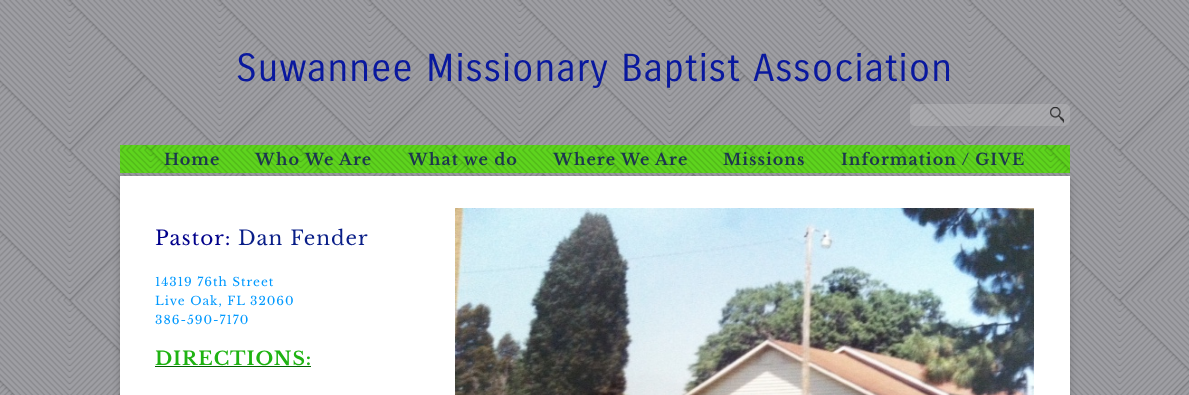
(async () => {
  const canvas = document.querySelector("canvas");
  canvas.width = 1189;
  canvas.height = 395;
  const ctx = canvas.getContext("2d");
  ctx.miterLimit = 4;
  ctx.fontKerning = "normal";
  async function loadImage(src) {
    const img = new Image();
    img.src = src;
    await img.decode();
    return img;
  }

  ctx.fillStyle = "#9e9ea3";
  ctx.fillRect(0, 0, 1189, 395);
  ctx.drawImage(await loadImage("img/1.png"), 0, 0, 1189, 395);
  ctx.fillStyle = "rgba(223, 223, 223, 0.2)";
  ctx.beginPath();
  ctx.roundRect(910, 104, 160, 22, 5);
  ctx.fill();
  ctx.drawImage(await loadImage("img/2.png"), 1050, 107, 14, 16);
  ctx.fillStyle = "rgba(30, 30, 30, 0.28)";
  ctx.filter = "blur(3.5px)";
  ctx.beginPath();
  ctx.rect(120, 178, 950, 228);
  ctx.fill();
  ctx.filter = "none";
  ctx.fillStyle = "#5ed41e";
  ctx.fillRect(120, 145, 950, 28);
  ctx.drawImage(await loadImage("img/3.png"), 120, 145, 950, 28);
  ctx.fillStyle = "#ffffff";
  ctx.fillRect(120, 176, 950, 219);
  ctx.fillStyle = "#006400";
  ctx.fillRect(155, 366, 156, 1);
  ctx.drawImage(await loadImage("img/4.png"), 455, 208, 579, 187);
  ctx.letterSpacing = "1px";
  ctx.font = "38px Carrois Gothic";
  ctx.fillStyle = "#09189e";
  ctx.fillText("Suwannee Missionary Baptist Association", 236, 81);
  ctx.font = "bold 16px Libre Baskerville";
  ctx.fillStyle = "#1d364f";
  for (const [text, x, y] of [
    ["Home", 164, 165],
    ["Who We Are", 255, 165],
    ["What we do", 408, 165],
    ["Where We Are", 553, 165],
    ["Missions", 723, 165],
    ["Information / GIVE", 841, 165],
  ]) {
    ctx.fillText(text, x, y);
  }
  ctx.font = "20px Libre Baskerville";
  ctx.fillStyle = "#00008b";
  ctx.fillText("Pastor:", 155, 245);
  ctx.fillStyle = "#081d87";
  ctx.fillText("Dan Fender", 238, 245);
  ctx.font = "12px Libre Baskerville";
  ctx.fillStyle = "#0099ff";
  for (const [text, x, y] of [
    ["14319 76th Street", 155, 286],
    ["Live Oak, FL 32060", 155, 305],
    ["386-590-7170", 155, 324],
  ]) {
    ctx.fillText(text, x, y);
  }
  ctx.font = "bold 18.75px Libre Baskerville";
  ctx.fillStyle = "#1fb312";
  ctx.fillText("DIRECTIONS:", 155, 365);
})();
